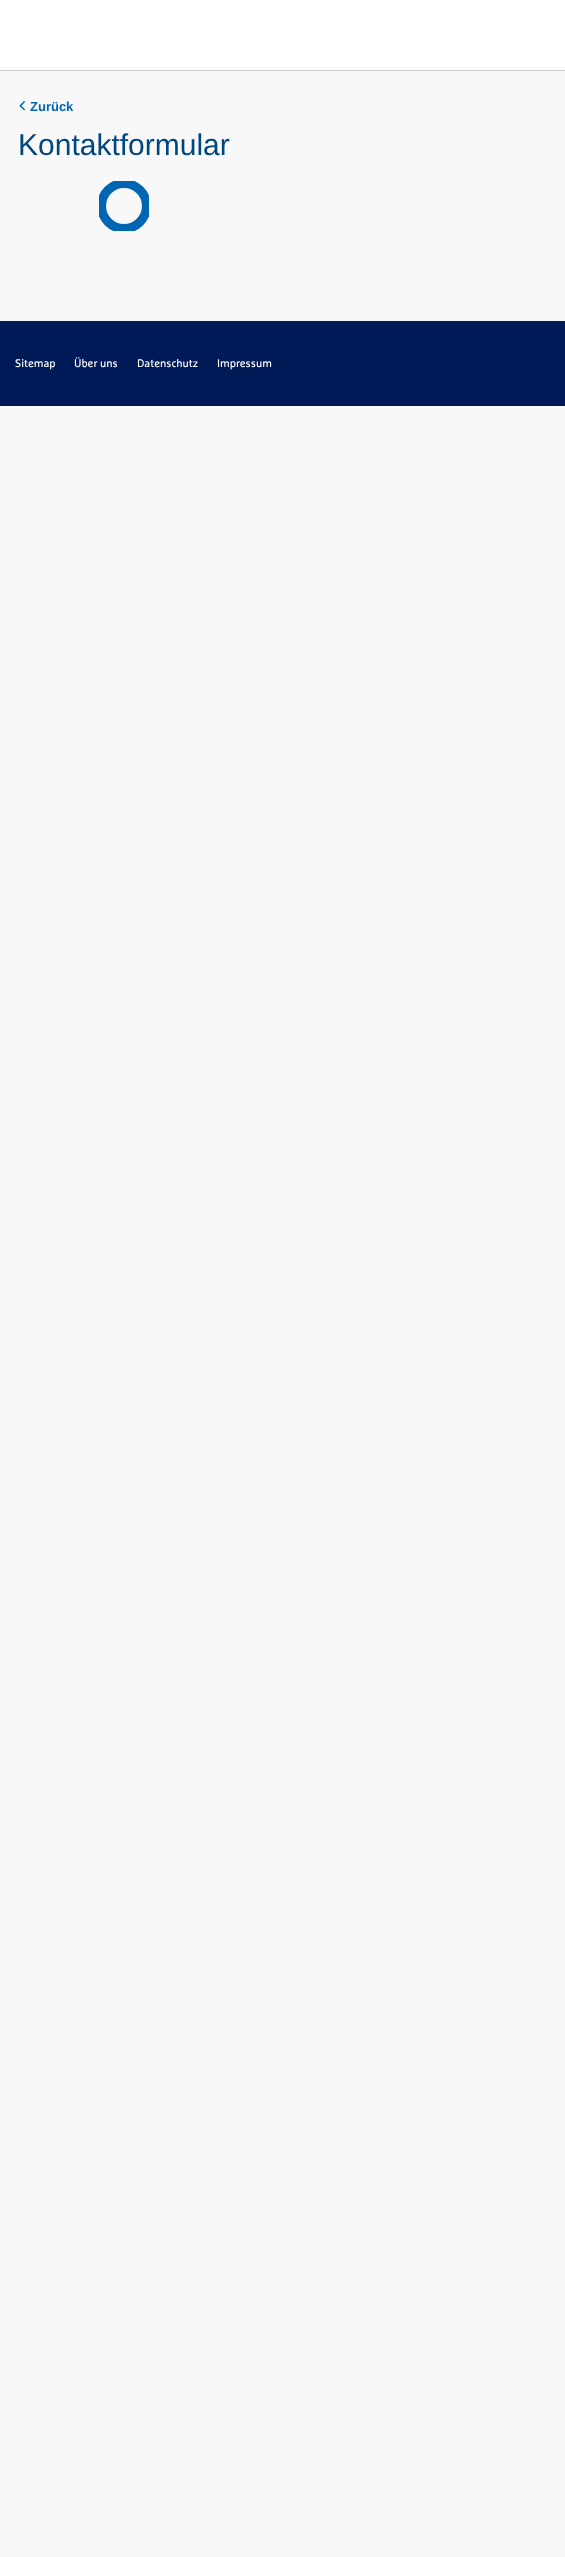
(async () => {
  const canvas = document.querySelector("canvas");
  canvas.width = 565;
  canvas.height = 2557;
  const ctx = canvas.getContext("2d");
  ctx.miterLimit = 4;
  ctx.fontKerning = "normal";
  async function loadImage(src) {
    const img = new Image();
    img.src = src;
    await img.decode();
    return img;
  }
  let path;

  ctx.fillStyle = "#f8f8f8";
  ctx.fillRect(0, 0, 565, 2557);
  ctx.fillStyle = "#ffffff";
  ctx.fillRect(0, 0, 565, 70);
  ctx.fillStyle = "#cacaca";
  ctx.fillRect(0, 70, 565, 1);
  ctx.drawImage(await loadImage("img/1.png"), 19, 100, 7, 11);
  ctx.save();
  ctx.beginPath();
  ctx.rect(99, 181, 25, 50);
  ctx.clip();
  ctx.beginPath();
  ctx.arc(124, 206, 22.5, 0, Math.PI * 2);
  ctx.strokeStyle = "#0066b3";
  ctx.lineWidth = 9.1;
  ctx.stroke();
  ctx.restore();
  ctx.save();
  ctx.beginPath();
  ctx.rect(123, 181, 2, 50);
  ctx.clip();
  path = new Path2D("M125 228.5C95.5 228.5 95.5 183.5 125 183.5C155 183.5 155 228.5 125 228.5Z");
  ctx.strokeStyle = "#0066b3";
  ctx.lineWidth = 9.1;
  ctx.stroke(path);
  ctx.restore();
  ctx.save();
  ctx.beginPath();
  ctx.rect(124, 181, 25, 50);
  ctx.clip();
  ctx.beginPath();
  ctx.arc(124, 206, 22.5, 0, Math.PI * 2);
  ctx.strokeStyle = "#0066b3";
  ctx.lineWidth = 9.1;
  ctx.stroke();
  ctx.restore();
  ctx.fillStyle = "#001957";
  ctx.fillRect(0, 321, 565, 85);
  ctx.font = "bold 13px Liberation Sans";
  ctx.fillStyle = "#0066b3";
  ctx.fillText("Zurück", 30, 111);
  ctx.font = "30px Liberation Sans";
  ctx.fillStyle = "#00477d";
  ctx.fillText("Kontaktformular", 18, 155);
  ctx.font = "11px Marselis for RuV";
  ctx.fillStyle = "#ffffff";
  for (const [text, x, y] of [
    ["Sitemap", 15, 367],
    ["Über uns", 74, 367],
    ["Datenschutz", 137, 367],
    ["Impressum", 217, 367],
  ]) {
    ctx.fillText(text, x, y);
  }
})();
